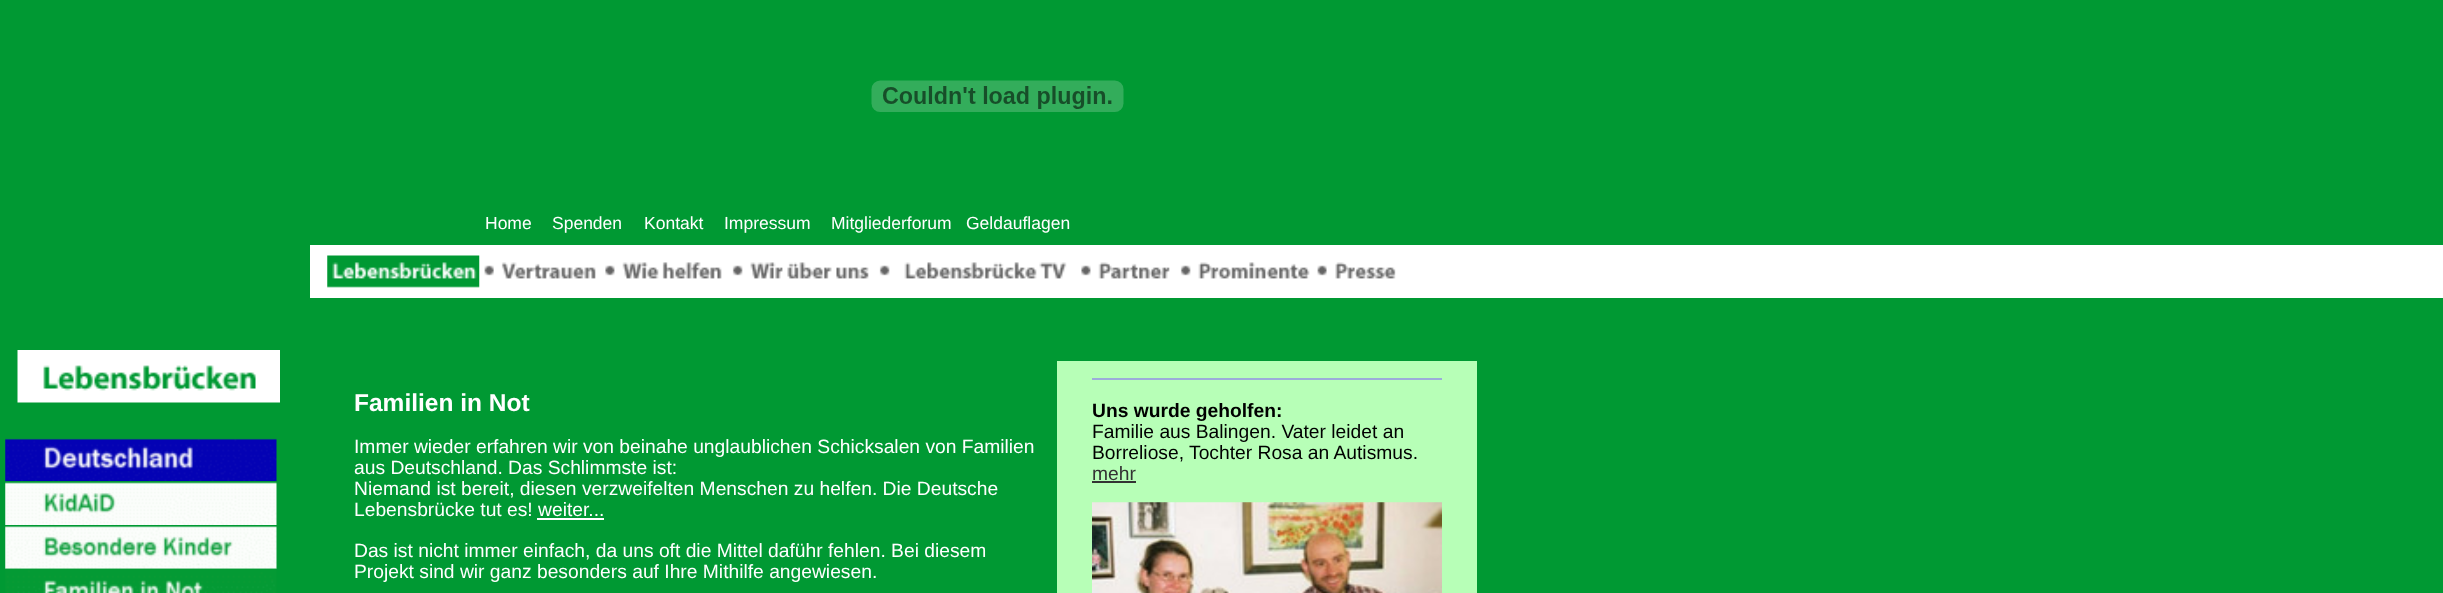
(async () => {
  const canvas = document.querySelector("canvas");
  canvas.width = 2443;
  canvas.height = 593;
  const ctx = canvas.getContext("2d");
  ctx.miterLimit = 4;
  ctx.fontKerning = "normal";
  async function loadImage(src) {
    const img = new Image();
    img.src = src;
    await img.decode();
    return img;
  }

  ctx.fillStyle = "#009933";
  ctx.fillRect(0, 0, 2443, 593);
  ctx.drawImage(await loadImage("img/1.png"), 871, 80, 253, 32);
  ctx.fillStyle = "#ffffff";
  ctx.fillRect(310, 245, 2133, 53);
  ctx.drawImage(await loadImage("img/2.png"), 327, 255, 153, 33);
  ctx.drawImage(await loadImage("img/3.png"), 479, 255, 15, 33);
  ctx.drawImage(await loadImage("img/4.png"), 501, 262, 95, 17);
  ctx.drawImage(await loadImage("img/5.png"), 605, 265, 10, 11);
  ctx.drawImage(await loadImage("img/6.png"), 622, 262, 100, 17);
  ctx.drawImage(await loadImage("img/7.png"), 732, 265, 11, 11);
  ctx.drawImage(await loadImage("img/8.png"), 750, 262, 119, 17);
  ctx.drawImage(await loadImage("img/7.png"), 879, 265, 11, 11);
  ctx.drawImage(await loadImage("img/9.png"), 904, 262, 163, 17);
  ctx.drawImage(await loadImage("img/5.png"), 1081, 265, 10, 11);
  ctx.drawImage(await loadImage("img/10.png"), 1098, 262, 72, 17);
  ctx.drawImage(await loadImage("img/7.png"), 1180, 265, 11, 11);
  ctx.drawImage(await loadImage("img/11.png"), 1198, 262, 112, 17);
  ctx.drawImage(await loadImage("img/12.png"), 1317, 265, 10, 11);
  ctx.drawImage(await loadImage("img/13.png"), 1335, 262, 61, 17);
  ctx.drawImage(await loadImage("img/14.png"), 17, 350, 263, 53);
  ctx.drawImage(await loadImage("img/15.png"), 5, 438, 272, 44);
  ctx.drawImage(await loadImage("img/16.png"), 5, 481, 272, 44);
  ctx.drawImage(await loadImage("img/17.png"), 5, 526, 272, 43);
  ctx.drawImage(await loadImage("img/18.png"), 5, 568, 272, 25);
  for (const [x, y, w, h, color] of [
    [537, 518, 67, 2, "#ffffff"],
    [1057, 361, 420, 232, "#b7ffb7"],
    [1092, 378, 350, 2, "#9cacda"],
    [1092, 481, 44, 2, "#333333"],
  ]) {
    ctx.fillStyle = color;
    ctx.fillRect(x, y, w, h);
  }
  ctx.drawImage(await loadImage("img/19.png"), 1092, 502, 350, 91);
  ctx.font = "17.5px Liberation Sans";
  ctx.fillStyle = "#ffffff";
  for (const [text, x, y] of [
    ["Home", 485, 229],
    ["Spenden", 552, 229],
    ["Kontakt", 644, 229],
    ["Impressum", 724, 229],
    ["Mitgliederforum", 831, 229],
    ["Geldauflagen", 966, 229],
  ]) {
    ctx.fillText(text, x, y);
  }
  ctx.font = "bold 24.5px Liberation Sans";
  ctx.fillText("Familien in Not", 354, 411);
  ctx.font = "19.25px Liberation Sans";
  for (const [text, x, y] of [
    ["Immer wieder erfahren wir von beinahe unglaublichen Schicksalen von Familien", 354, 453],
    ["aus Deutschland. Das Schlimmste ist:", 354, 474],
    ["Niemand ist bereit, diesen verzweifelten Menschen zu helfen. Die Deutsche", 354, 495],
    ["Lebensbrücke tut es! weiter...", 354, 516],
    ["Das ist nicht immer einfach, da uns oft die Mittel daführ fehlen. Bei diesem", 354, 557],
    ["Projekt sind wir ganz besonders auf Ihre Mithilfe angewiesen.", 354, 578],
  ]) {
    ctx.fillText(text, x, y);
  }
  ctx.font = "bold 19.25px Liberation Sans";
  ctx.fillStyle = "#000000";
  ctx.fillText("Uns wurde geholfen:", 1092, 417);
  ctx.font = "19.25px Liberation Sans";
  ctx.fillText("Familie aus Balingen. Vater leidet an", 1092, 438);
  ctx.fillText("Borreliose, Tochter Rosa an Autismus.", 1092, 459);
  ctx.fillStyle = "#333333";
  ctx.fillText("mehr", 1092, 480);
})();
